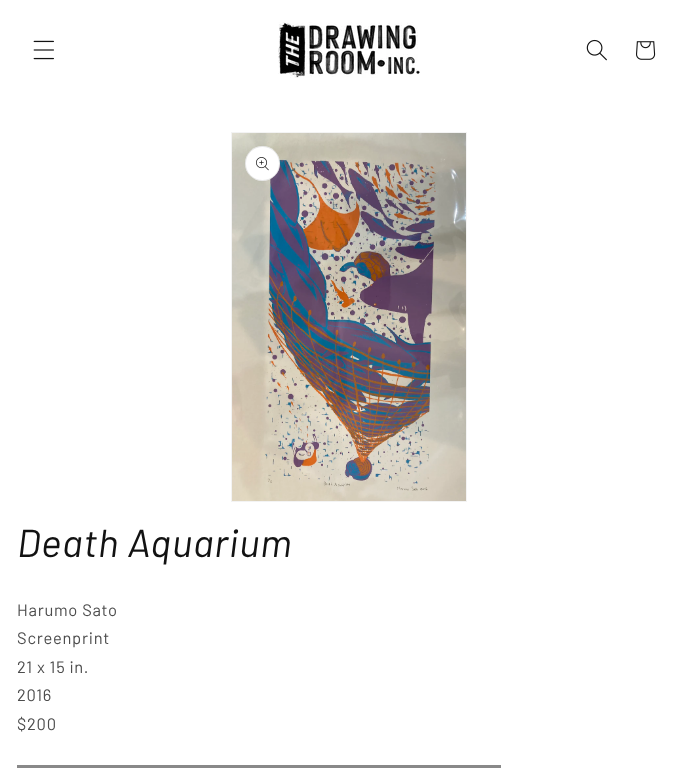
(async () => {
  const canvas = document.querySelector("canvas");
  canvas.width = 698;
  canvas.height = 768;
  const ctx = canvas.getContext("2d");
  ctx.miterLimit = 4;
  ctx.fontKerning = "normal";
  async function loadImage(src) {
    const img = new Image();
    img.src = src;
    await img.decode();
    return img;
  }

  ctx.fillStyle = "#ffffff";
  ctx.fillRect(0, 0, 698, 768);
  ctx.drawImage(await loadImage("img/1.png"), 33, 40, 21, 20);
  ctx.drawImage(await loadImage("img/2.png"), 278, 22, 142, 56);
  ctx.drawImage(await loadImage("img/3.png"), 586, 39, 21, 22);
  ctx.drawImage(await loadImage("img/4.png"), 636, 41, 20, 19);
  ctx.strokeStyle = "#f3f3f3";
  ctx.strokeRect(231.5, 132.5, 235, 369);
  ctx.drawImage(await loadImage("img/5.png"), 232, 133, 234, 368);
  ctx.beginPath();
  ctx.arc(262.5, 163.5, 17.5, 0, Math.PI * 2);
  ctx.fill();
  ctx.beginPath();
  ctx.arc(262.5, 163.5, 17, 0, Math.PI * 2);
  ctx.strokeStyle = "rgba(18, 18, 18, 0.1)";
  ctx.stroke();
  ctx.drawImage(await loadImage("img/6.png"), 256, 157, 13, 14);
  ctx.fillStyle = "#898989";
  ctx.fillRect(17, 765, 484, 3);
  ctx.letterSpacing = "0.75px";
  ctx.font = "italic 39px Barlow";
  ctx.fillStyle = "#121212";
  ctx.fillText("Death Aquarium", 17, 557);
  ctx.font = "16.5px Barlow";
  ctx.fillStyle = "#4d4d4d";
  for (const [text, x, y] of [
    ["Harumo Sato", 17, 616],
    ["Screenprint", 17, 644],
    ["21 x 15 in.", 17, 673],
    ["2016", 17, 701],
    ["$200", 17, 730],
  ]) {
    ctx.fillText(text, x, y);
  }
})();
